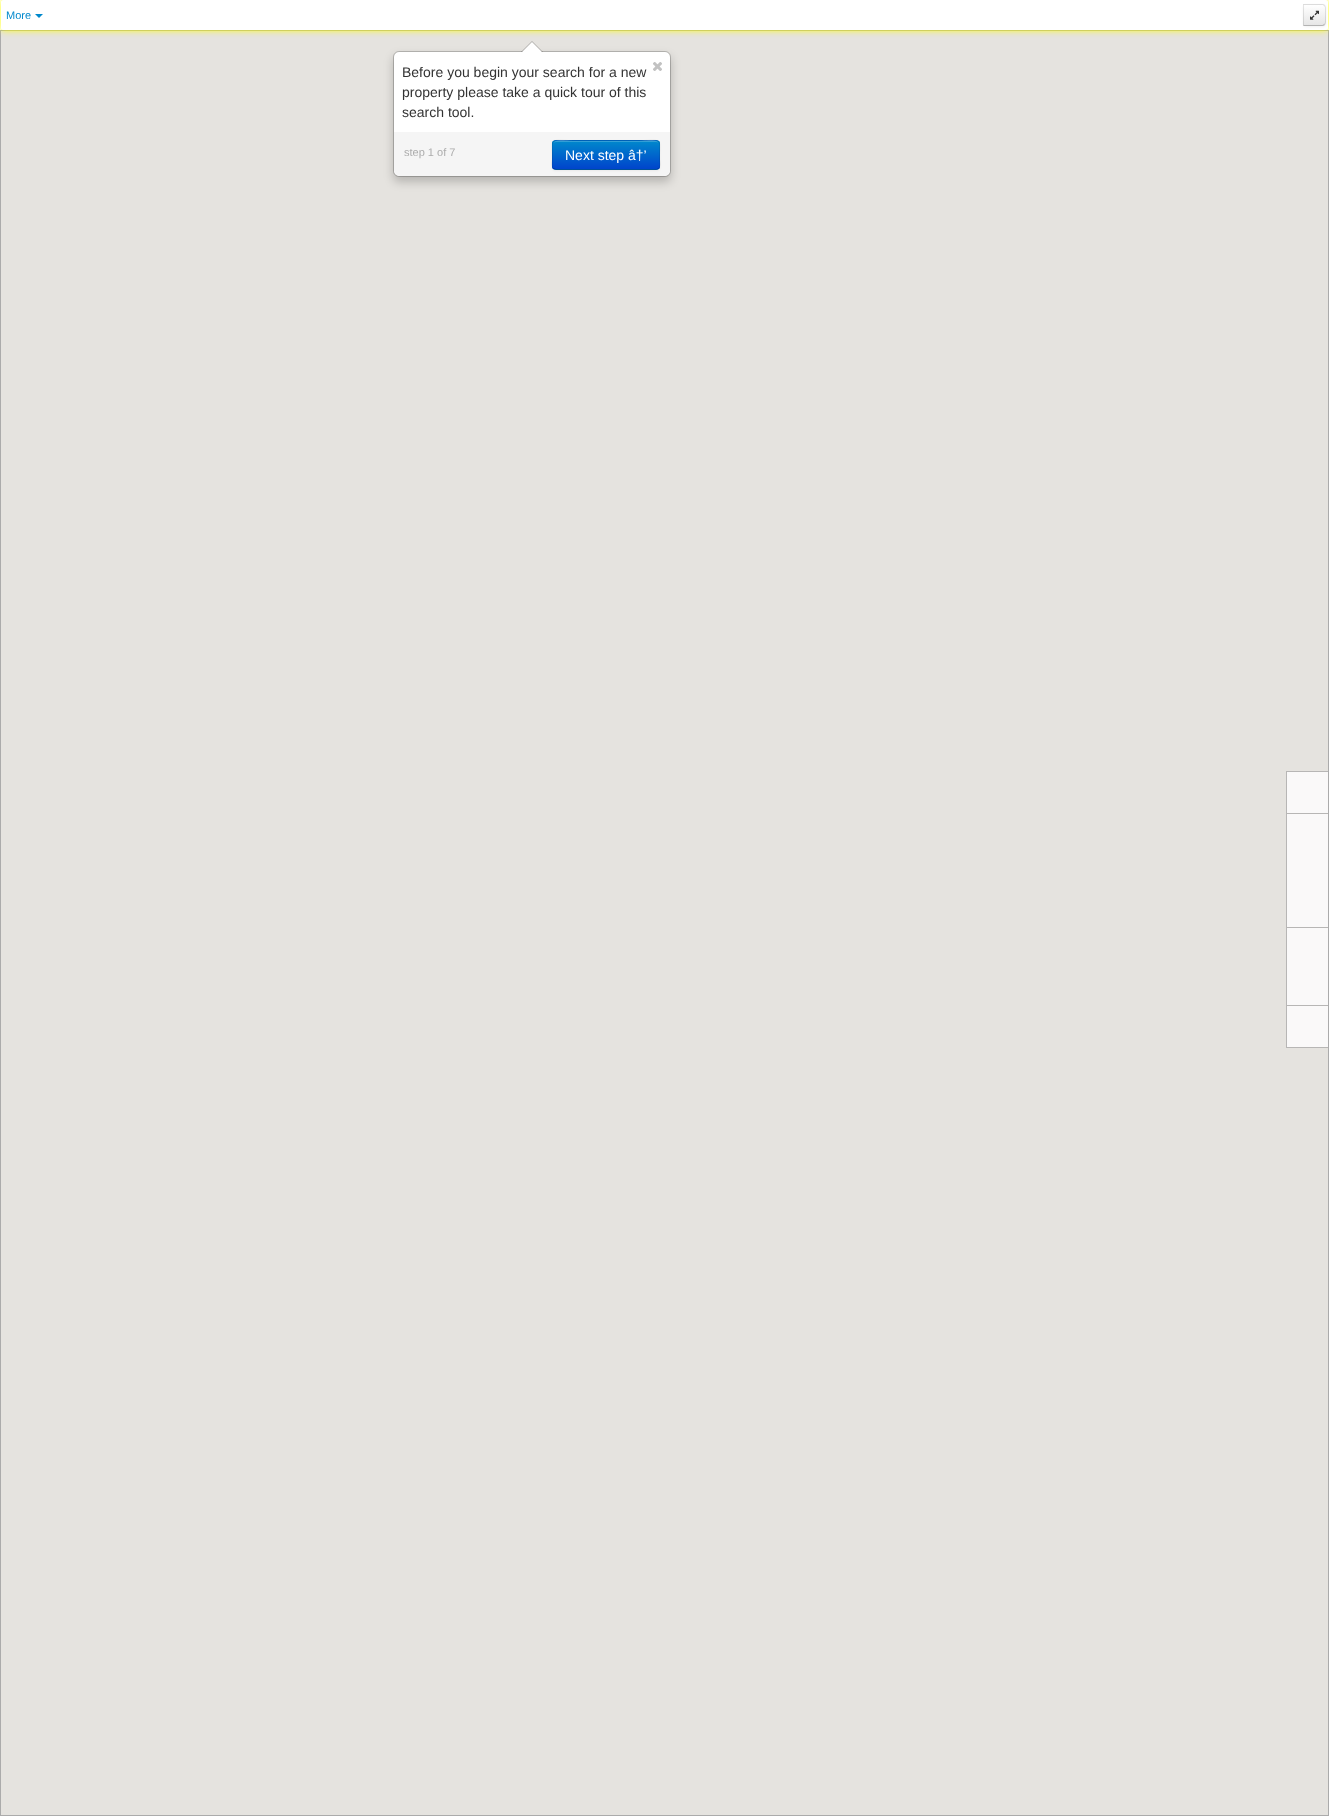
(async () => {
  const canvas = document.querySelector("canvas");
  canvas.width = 1329;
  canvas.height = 1816;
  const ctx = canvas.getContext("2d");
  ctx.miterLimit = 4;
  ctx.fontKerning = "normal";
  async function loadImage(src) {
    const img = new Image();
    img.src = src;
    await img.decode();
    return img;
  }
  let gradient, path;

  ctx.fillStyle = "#ffffff";
  ctx.fillRect(0, 0, 1329, 1816);
  ctx.strokeStyle = "#ababab";
  ctx.strokeRect(0.5, 30.5, 1328, 1785);
  ctx.fillStyle = "#e5e3df";
  ctx.fillRect(1, 31, 1327, 1784);
  ctx.save();
  path = new Path2D("M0 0H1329V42H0ZM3 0H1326C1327 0 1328 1 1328 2V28C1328 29 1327 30 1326 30H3C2 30 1 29 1 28V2C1 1 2 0 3 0Z");
  ctx.clip(path, "evenodd");
  ctx.fillStyle = "#ffff00";
  ctx.filter = "blur(3.5px)";
  ctx.beginPath();
  ctx.roundRect(1, 0, 1327, 30, 2);
  ctx.fill();
  ctx.filter = "none";
  ctx.restore();
  ctx.fillStyle = "#0088cc";
  path = new Path2D("M35 14H43L39 18Z");
  ctx.fill(path);
  ctx.fillStyle = "rgba(0, 0, 0, 0.05)";
  ctx.filter = "blur(1px)";
  ctx.beginPath();
  ctx.roundRect(1303, 5, 23, 22, 4);
  ctx.fill();
  ctx.filter = "none";
  ctx.fillStyle = "#f5f5f5";
  ctx.beginPath();
  ctx.roundRect(1303, 4, 23, 22, [0, 4, 4, 0]);
  ctx.fill();
  ctx.save();
  ctx.beginPath();
  ctx.roundRect(1303, 4, 23, 22, [0, 4, 4, 0]);
  ctx.clip();
  gradient = ctx.createLinearGradient(1315, 5, 1315, 25);
  gradient.addColorStop(0, "#ffffff");
  gradient.addColorStop(1, "#e6e6e6");
  ctx.fillStyle = gradient;
  ctx.fillRect(1303, 5, 23, 20);
  ctx.restore();
  ctx.fillStyle = "rgba(0, 0, 0, 0.1)";
  path = new Path2D("M1303 4L1304 5H1322C1323 5 1323.5 5.5 1324 6L1325 5C1324 4.5 1323 4 1322 4Z");
  ctx.fill(path);
  path = new Path2D("M1326 22V8C1326 7 1325.5 6 1325 5L1324 6C1324.5 6.5 1325 7 1325 8V22C1325 23 1324.5 23.5 1324 24L1325 25C1325.5 24 1326 23 1326 22Z");
  ctx.fill(path);
  ctx.fillStyle = "#b3b3b3";
  path = new Path2D("M1322 26C1323 26 1324 25.5 1325 25L1324 24C1323.5 24.5 1323 25 1322 25H1304L1303 26Z");
  ctx.fill(path);
  ctx.fillStyle = "rgba(0, 0, 0, 0.1)";
  path = new Path2D("M1303 4V26L1304 25V5Z");
  ctx.fill(path);
  ctx.drawImage(await loadImage("img/1.png"), 1310, 10, 9, 10);
  for (const [x, y, w, h, color] of [
    [1287, 772, 41, 275, "#faf9f9"],
    [1286, 771, 42, 1, "#b7b6b5"],
    [1286, 1047, 42, 1, "#b7b6b5"],
    [1286, 771, 1, 277, "#b7b6b5"],
    [1287, 813, 41, 1, "#b7b6b5"],
    [1287, 927, 41, 1, "#b7b6b5"],
    [1287, 1005, 41, 1, "#b7b6b5"],
  ]) {
    ctx.fillStyle = color;
    ctx.fillRect(x, y, w, h);
  }
  ctx.fillStyle = "rgba(0, 0, 0, 0.2)";
  ctx.filter = "blur(5px)";
  ctx.beginPath();
  ctx.roundRect(393, 56, 278, 126, 6);
  ctx.fill();
  ctx.filter = "none";
  ctx.fillStyle = "#ffffff";
  ctx.beginPath();
  ctx.roundRect(394, 52, 276, 124, 5);
  ctx.fill();
  ctx.beginPath();
  ctx.roundRect(393.5, 51.5, 277, 125, 5.5);
  ctx.strokeStyle = "rgba(0, 0, 0, 0.2)";
  ctx.stroke();
  ctx.fillStyle = "rgba(0, 0, 0, 0.25)";
  path = new Path2D("M543 52H521L532 41Z");
  ctx.fill(path);
  ctx.fillStyle = "#ffffff";
  path = new Path2D("M542 52H522L532 42Z");
  ctx.fill(path);
  ctx.drawImage(await loadImage("img/2.png"), 653, 62, 9, 9);
  ctx.fillStyle = "#f5f5f5";
  ctx.beginPath();
  ctx.roundRect(394, 132, 276, 44, [0, 0, 6, 6]);
  ctx.fill();
  ctx.fillStyle = "rgba(0, 0, 0, 0.05)";
  ctx.filter = "blur(1px)";
  ctx.beginPath();
  ctx.roundRect(552, 141, 108, 30, 4);
  ctx.fill();
  ctx.filter = "none";
  ctx.fillStyle = "#006dcc";
  ctx.beginPath();
  ctx.roundRect(552, 140, 108, 30, 4);
  ctx.fill();
  ctx.save();
  ctx.beginPath();
  ctx.roundRect(552, 140, 108, 30, 4);
  ctx.clip();
  gradient = ctx.createLinearGradient(606, 141, 606, 169);
  gradient.addColorStop(0, "#0088cc");
  gradient.addColorStop(1, "#0044cc");
  ctx.fillStyle = gradient;
  ctx.fillRect(552, 141, 108, 28);
  ctx.restore();
  ctx.fillStyle = "rgba(255, 255, 255, 0.2)";
  path = new Path2D("M556 142H656C658 142 659 143 659 145C659 137 642 141 639 141H573C570 141 553 137 553 145C553 143 554 142 556 142Z");
  ctx.fill(path);
  path = new Path2D("M658.5 168.5L656.5 169.5H572.5H556L553.5 168.5");
  ctx.strokeStyle = "rgba(0, 0, 0, 0.25)";
  ctx.stroke(path);
  path = new Path2D("M553.5 168.5C551 166 552.5 161.5 552.5 158.5C552.5 136.5 549 140.5 572.5 140.5H639.5C663 140.5 659.5 136.5 659.5 158.5C659.5 161.5 661 166 658.5 168.5");
  ctx.strokeStyle = "rgba(0, 0, 0, 0.1)";
  ctx.stroke(path);
  ctx.font = "11px Liberation Sans";
  ctx.fillStyle = "#0088cc";
  ctx.fillText("More", 6, 19);
  ctx.font = "14px Liberation Sans";
  ctx.fillStyle = "#333333";
  for (const [text, x, y] of [
    ["Before you begin your search for a new", 402, 77],
    ["property please take a quick tour of this", 402, 97],
    ["search tool.", 402, 117],
  ]) {
    ctx.fillText(text, x, y);
  }
  ctx.font = "11px Liberation Sans";
  ctx.fillStyle = "#acacac";
  ctx.fillText("step 1 of 7", 404, 156);
  ctx.font = "14px Liberation Sans";
  ctx.fillStyle = "#ffffff";
  ctx.fillText("Next step â†’", 565, 160);
})();
